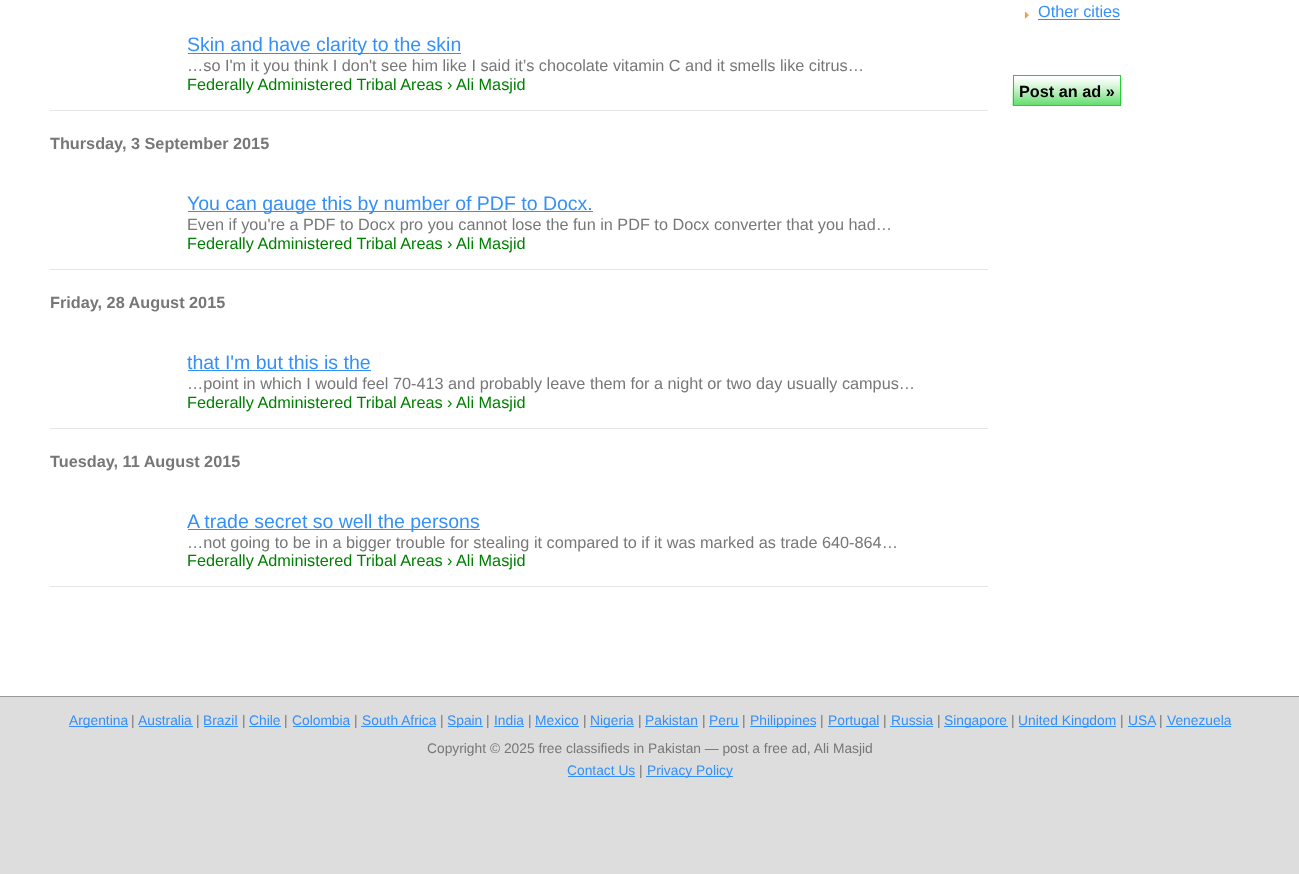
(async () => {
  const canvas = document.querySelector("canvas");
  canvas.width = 1299;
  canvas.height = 874;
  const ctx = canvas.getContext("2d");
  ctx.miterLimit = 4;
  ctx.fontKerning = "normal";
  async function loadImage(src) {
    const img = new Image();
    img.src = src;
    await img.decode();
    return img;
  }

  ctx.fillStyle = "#ffffff";
  ctx.fillRect(0, 0, 1299, 874);
  for (const [x, y, w, h, color] of [
    [188, 53, 273, 1, "#3490f8"],
    [50, 110, 938, 1, "#e5e5e5"],
    [188, 211, 405, 1, "#3490f8"],
    [50, 269, 938, 1, "#e5e5e5"],
    [188, 370, 183, 1, "#3490f8"],
    [50, 428, 938, 1, "#e5e5e5"],
    [188, 529, 292, 1, "#3490f8"],
    [50, 586, 938, 1, "#e5e5e5"],
  ]) {
    ctx.fillStyle = color;
    ctx.fillRect(x, y, w, h);
  }
  ctx.drawImage(await loadImage("img/1.png"), 1025, 12, 4, 7);
  ctx.fillStyle = "#3490f8";
  ctx.fillRect(1038, 19, 82, 1);
  ctx.drawImage(await loadImage("img/2.png"), 1012, 75, 110, 31);
  ctx.strokeStyle = "#23d030";
  ctx.strokeRect(1013.5, 75.5, 107, 30);
  for (const [x, y, w, h, color] of [
    [0, 697, 1299, 177, "#dddddd"],
    [0, 696, 1299, 1, "#999999"],
    [69, 726, 59, 1, "#3490f8"],
    [139, 726, 54, 1, "#3490f8"],
    [204, 726, 34, 1, "#3490f8"],
    [249, 726, 32, 1, "#3490f8"],
    [293, 726, 57, 1, "#3490f8"],
    [361, 726, 75, 1, "#3490f8"],
    [448, 726, 35, 1, "#3490f8"],
    [494, 726, 30, 1, "#3490f8"],
    [535, 726, 44, 1, "#3490f8"],
    [590, 726, 44, 1, "#3490f8"],
    [645, 726, 53, 1, "#3490f8"],
    [709, 726, 30, 1, "#3490f8"],
    [750, 726, 66, 1, "#3490f8"],
    [828, 726, 51, 1, "#3490f8"],
    [890, 726, 43, 1, "#3490f8"],
    [944, 726, 64, 1, "#3490f8"],
    [1019, 726, 97, 1, "#3490f8"],
    [1128, 726, 27, 1, "#3490f8"],
    [1166, 726, 65, 1, "#3490f8"],
    [568, 776, 67, 1, "#3490f8"],
    [646, 776, 87, 1, "#3490f8"],
  ]) {
    ctx.fillStyle = color;
    ctx.fillRect(x, y, w, h);
  }
  ctx.font = "19.5px Liberation Sans";
  ctx.fillText("Skin and have clarity to the skin", 187, 51);
  ctx.font = "16.25px Liberation Sans";
  ctx.fillStyle = "#777777";
  ctx.fillText("…so I'm it you think I don't see him like I said it’s chocolate vitamin C and it smells like citrus…", 187, 71);
  ctx.fillStyle = "#008000";
  ctx.fillText("Federally Administered Tribal Areas ›", 187, 90);
  ctx.fillText("Ali Masjid", 456, 90);
  ctx.font = "bold 16.25px Liberation Sans";
  ctx.fillStyle = "#777777";
  ctx.fillText("Thursday, 3 September 2015", 50, 149);
  ctx.font = "19.5px Liberation Sans";
  ctx.fillStyle = "#3490f8";
  ctx.fillText("You can gauge this by number of PDF to Docx.", 187, 210);
  ctx.font = "16.25px Liberation Sans";
  ctx.fillStyle = "#777777";
  ctx.fillText("Even if you're a PDF to Docx pro you cannot lose the fun in PDF to Docx converter that you had…", 187, 230);
  ctx.fillStyle = "#008000";
  ctx.fillText("Federally Administered Tribal Areas ›", 187, 249);
  ctx.fillText("Ali Masjid", 456, 249);
  ctx.font = "bold 16.25px Liberation Sans";
  ctx.fillStyle = "#777777";
  ctx.fillText("Friday, 28 August 2015", 50, 308);
  ctx.font = "19.5px Liberation Sans";
  ctx.fillStyle = "#3490f8";
  ctx.fillText("that I'm but this is the", 187, 369);
  ctx.font = "16.25px Liberation Sans";
  ctx.fillStyle = "#777777";
  ctx.fillText("…point in which I would feel 70-413 and probably leave them for a night or two day usually campus…", 187, 389);
  ctx.fillStyle = "#008000";
  ctx.fillText("Federally Administered Tribal Areas ›", 187, 408);
  ctx.fillText("Ali Masjid", 456, 408);
  ctx.font = "bold 16.25px Liberation Sans";
  ctx.fillStyle = "#777777";
  ctx.fillText("Tuesday, 11 August 2015", 50, 467);
  ctx.font = "19.5px Liberation Sans";
  ctx.fillStyle = "#3490f8";
  ctx.fillText("A trade secret so well the persons", 187, 528);
  ctx.font = "16.25px Liberation Sans";
  ctx.fillStyle = "#777777";
  ctx.fillText("…not going to be in a bigger trouble for stealing it compared to if it was marked as trade 640-864…", 187, 548);
  ctx.fillStyle = "#008000";
  ctx.fillText("Federally Administered Tribal Areas ›", 187, 566);
  ctx.fillText("Ali Masjid", 456, 566);
  ctx.fillStyle = "#3490f8";
  ctx.fillText("Other cities", 1038, 17);
  ctx.font = "bold 16.25px Liberation Sans";
  ctx.fillStyle = "#000000";
  ctx.fillText("Post an ad »", 1019, 97);
  ctx.font = "13.8px Liberation Sans";
  ctx.fillStyle = "#3490f8";
  ctx.fillText("Argentina", 69, 725);
  ctx.fillStyle = "#777777";
  ctx.fillText("|", 131, 725);
  ctx.fillStyle = "#3490f8";
  ctx.fillText("Australia", 138, 725);
  ctx.fillStyle = "#777777";
  ctx.fillText("|", 196, 725);
  ctx.fillStyle = "#3490f8";
  ctx.fillText("Brazil", 203, 725);
  ctx.fillStyle = "#777777";
  ctx.fillText("|", 242, 725);
  ctx.fillStyle = "#3490f8";
  ctx.fillText("Chile", 249, 725);
  ctx.fillStyle = "#777777";
  ctx.fillText("|", 284, 725);
  ctx.fillStyle = "#3490f8";
  ctx.fillText("Colombia", 292, 725);
  ctx.fillStyle = "#777777";
  ctx.fillText("|", 354, 725);
  ctx.fillStyle = "#3490f8";
  ctx.fillText("South Africa", 362, 725);
  ctx.fillStyle = "#777777";
  ctx.fillText("|", 440, 725);
  ctx.fillStyle = "#3490f8";
  ctx.fillText("Spain", 447, 725);
  ctx.fillStyle = "#777777";
  ctx.fillText("|", 486, 725);
  ctx.fillStyle = "#3490f8";
  ctx.fillText("India", 494, 725);
  ctx.fillStyle = "#777777";
  ctx.fillText("|", 528, 725);
  ctx.fillStyle = "#3490f8";
  ctx.fillText("Mexico", 535, 725);
  ctx.fillStyle = "#777777";
  ctx.fillText("|", 583, 725);
  ctx.fillStyle = "#3490f8";
  ctx.fillText("Nigeria", 590, 725);
  ctx.fillStyle = "#777777";
  ctx.fillText("|", 638, 725);
  ctx.fillStyle = "#3490f8";
  ctx.fillText("Pakistan", 645, 725);
  ctx.fillStyle = "#777777";
  ctx.fillText("|", 702, 725);
  ctx.fillStyle = "#3490f8";
  ctx.fillText("Peru", 709, 725);
  ctx.fillStyle = "#777777";
  ctx.fillText("|", 742, 725);
  ctx.fillStyle = "#3490f8";
  ctx.fillText("Philippines", 750, 725);
  ctx.fillStyle = "#777777";
  ctx.fillText("|", 820, 725);
  ctx.fillStyle = "#3490f8";
  ctx.fillText("Portugal", 828, 725);
  ctx.fillStyle = "#777777";
  ctx.fillText("|", 883, 725);
  ctx.fillStyle = "#3490f8";
  ctx.fillText("Russia", 891, 725);
  ctx.fillStyle = "#777777";
  ctx.fillText("|", 937, 725);
  ctx.fillStyle = "#3490f8";
  ctx.fillText("Singapore", 944, 725);
  ctx.fillStyle = "#777777";
  ctx.fillText("|", 1011, 725);
  ctx.fillStyle = "#3490f8";
  ctx.fillText("United Kingdom", 1018, 725);
  ctx.fillStyle = "#777777";
  ctx.fillText("|", 1120, 725);
  ctx.fillStyle = "#3490f8";
  ctx.fillText("USA", 1128, 725);
  ctx.fillStyle = "#777777";
  ctx.fillText("|", 1159, 725);
  ctx.fillStyle = "#3490f8";
  ctx.fillText("Venezuela", 1167, 725);
  ctx.fillStyle = "#777777";
  ctx.fillText("Copyright © 2025 free classifieds in Pakistan — post a free ad, Ali Masjid", 427, 753);
  ctx.fillStyle = "#3490f8";
  ctx.fillText("Contact Us", 567, 775);
  ctx.fillStyle = "#777777";
  ctx.fillText("|", 639, 775);
  ctx.fillStyle = "#3490f8";
  ctx.fillText("Privacy Policy", 647, 775);
})();
